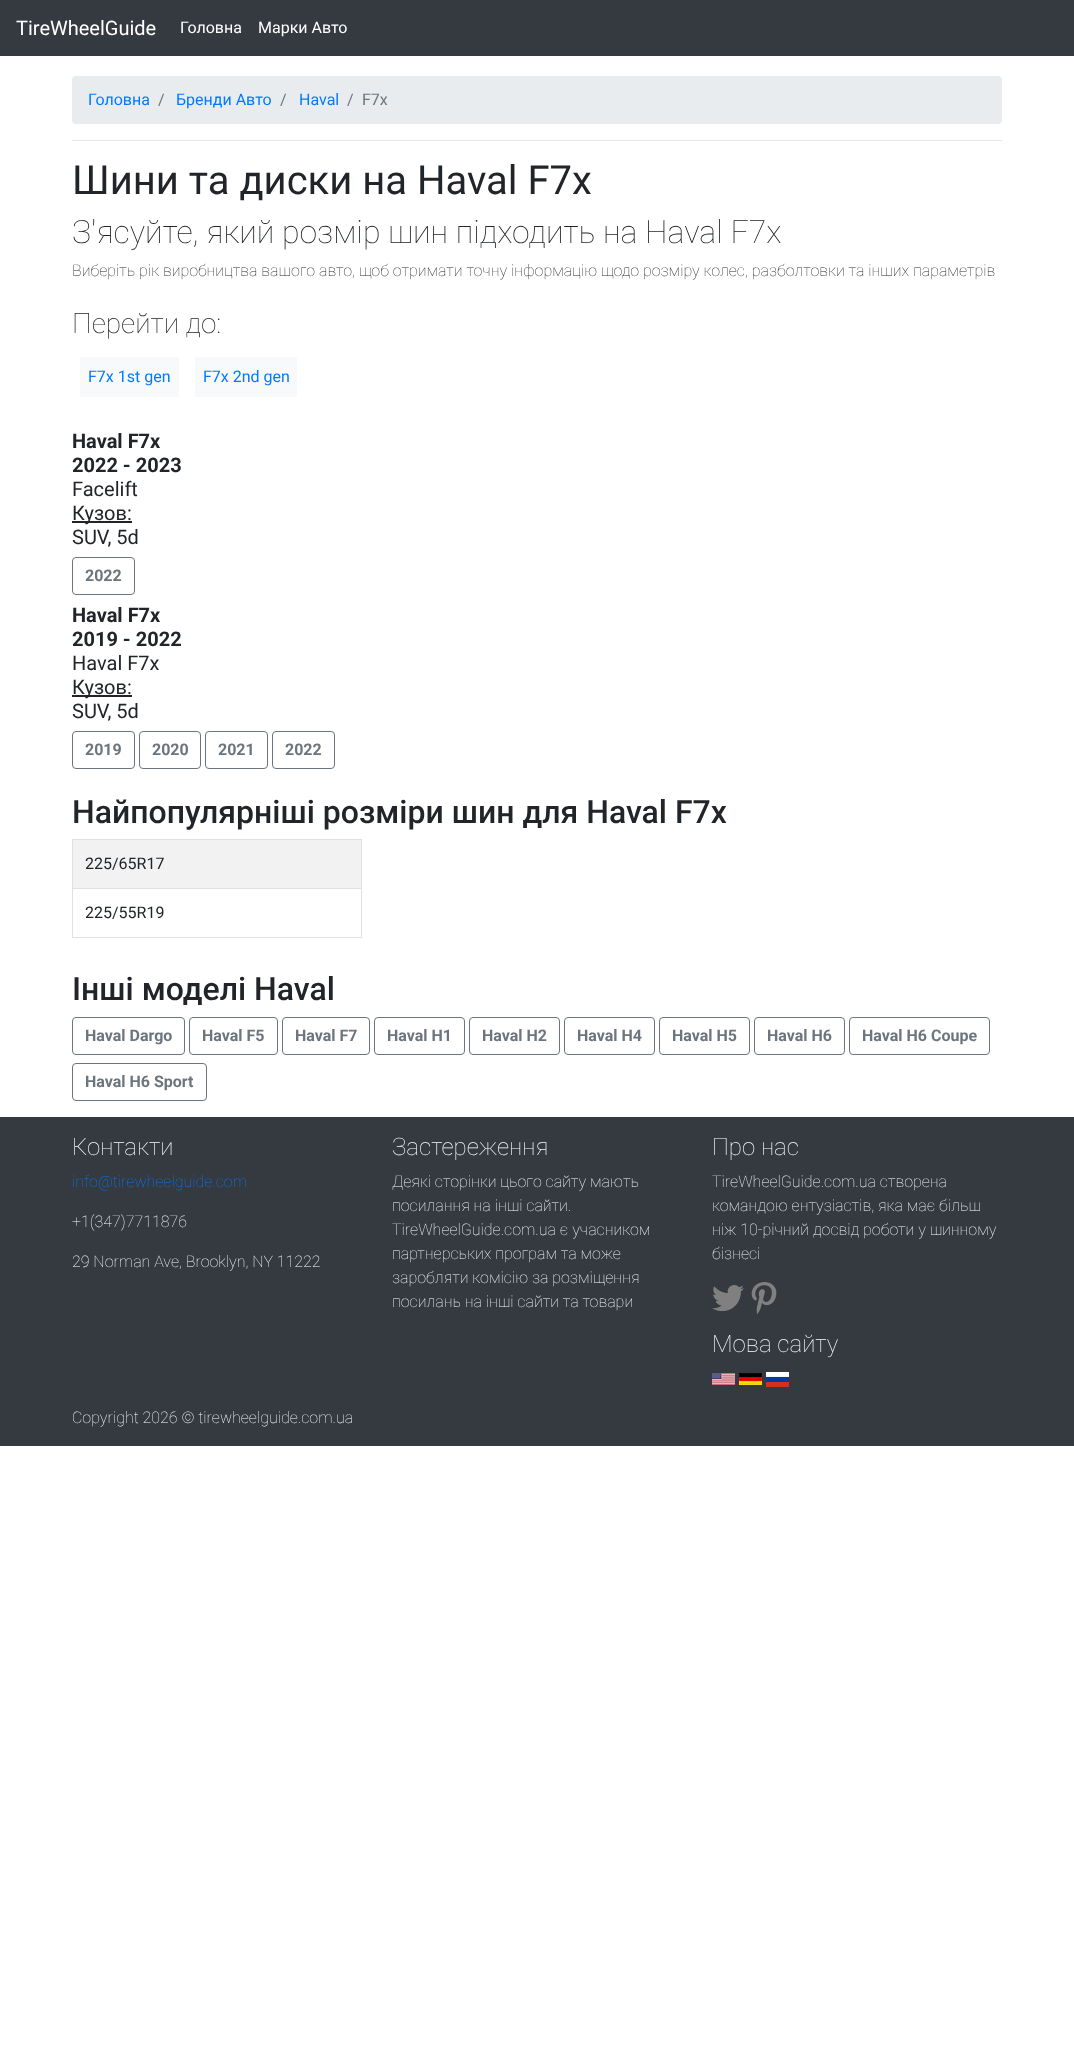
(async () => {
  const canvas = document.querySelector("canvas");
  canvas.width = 1074;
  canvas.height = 2067;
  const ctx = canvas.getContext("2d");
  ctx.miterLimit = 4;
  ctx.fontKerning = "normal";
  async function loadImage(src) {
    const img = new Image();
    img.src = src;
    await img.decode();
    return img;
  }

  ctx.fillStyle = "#ffffff";
  ctx.fillRect(0, 0, 1074, 2067);
  ctx.fillStyle = "#343a40";
  ctx.fillRect(0, 0, 1074, 56);
  ctx.fillStyle = "#e9ecef";
  ctx.beginPath();
  ctx.roundRect(72, 76, 930, 48, 4);
  ctx.fill();
  for (const [x, y, w, h, color] of [
    [72, 140, 930, 1, "#e6e6e6"],
    [80, 357, 99, 40, "#f8f9fa"],
    [195, 357, 102, 40, "#f8f9fa"],
    [72, 521, 60, 2, "#212529"],
  ]) {
    ctx.fillStyle = color;
    ctx.fillRect(x, y, w, h);
  }
  ctx.beginPath();
  ctx.roundRect(72.5, 557.5, 62, 37, 3.5);
  ctx.strokeStyle = "#6c757d";
  ctx.stroke();
  ctx.fillRect(72, 695, 60, 2);
  ctx.beginPath();
  ctx.roundRect(72.5, 731.5, 62, 37, 3.5);
  ctx.stroke();
  ctx.beginPath();
  ctx.roundRect(139.5, 731.5, 61, 37, 3.5);
  ctx.stroke();
  ctx.beginPath();
  ctx.roundRect(205.5, 731.5, 62, 37, 3.5);
  ctx.stroke();
  ctx.beginPath();
  ctx.roundRect(272.5, 731.5, 62, 37, 3.5);
  ctx.stroke();
  for (const [x, y, w, h, color] of [
    [72, 839, 290, 1, "#dee2e6"],
    [361, 839, 1, 99, "#dee2e6"],
    [72, 937, 290, 1, "#dee2e6"],
    [72, 839, 1, 99, "#dee2e6"],
    [73, 840, 288, 48, "#f2f2f2"],
    [72, 888, 290, 1, "#dee2e6"],
  ]) {
    ctx.fillStyle = color;
    ctx.fillRect(x, y, w, h);
  }
  ctx.beginPath();
  ctx.roundRect(72.5, 1017.5, 112, 37, 3.5);
  ctx.stroke();
  ctx.beginPath();
  ctx.roundRect(189.5, 1017.5, 88, 37, 3.5);
  ctx.stroke();
  ctx.beginPath();
  ctx.roundRect(282.5, 1017.5, 87, 37, 3.5);
  ctx.stroke();
  ctx.beginPath();
  ctx.roundRect(374.5, 1017.5, 90, 37, 3.5);
  ctx.stroke();
  ctx.beginPath();
  ctx.roundRect(469.5, 1017.5, 90, 37, 3.5);
  ctx.stroke();
  ctx.beginPath();
  ctx.roundRect(564.5, 1017.5, 90, 37, 3.5);
  ctx.stroke();
  ctx.beginPath();
  ctx.roundRect(659.5, 1017.5, 90, 37, 3.5);
  ctx.stroke();
  ctx.beginPath();
  ctx.roundRect(754.5, 1017.5, 90, 37, 3.5);
  ctx.stroke();
  ctx.beginPath();
  ctx.roundRect(849.5, 1017.5, 140, 37, 3.5);
  ctx.stroke();
  ctx.beginPath();
  ctx.roundRect(72.5, 1063.5, 134, 37, 3.5);
  ctx.stroke();
  ctx.fillStyle = "#343a40";
  ctx.fillRect(0, 1117, 1074, 329);
  ctx.drawImage(await loadImage("img/1.png"), 712, 1285, 32, 26);
  ctx.drawImage(await loadImage("img/2.png"), 751, 1282, 26, 32);
  ctx.drawImage(await loadImage("img/3.png"), 712, 1373, 23, 12);
  ctx.drawImage(await loadImage("img/4.png"), 739, 1373, 23, 12);
  ctx.drawImage(await loadImage("img/5.png"), 766, 1372, 23, 15);
  ctx.font = "20px Roboto";
  ctx.fillStyle = "#ffffff";
  ctx.fillText("TireWheelGuide", 16, 35);
  ctx.font = "16px Roboto";
  ctx.fillText("Головна", 180, 33);
  ctx.fillText("Марки Авто", 258, 33);
  ctx.fillStyle = "#007bff";
  ctx.fillText("Головна", 88, 105);
  ctx.fillStyle = "#6c757d";
  ctx.fillText("/", 158, 105);
  ctx.fillStyle = "#007bff";
  ctx.fillText("Бренди Авто", 176, 105);
  ctx.fillStyle = "#6c757d";
  ctx.fillText("/", 280, 105);
  ctx.fillStyle = "#007bff";
  ctx.fillText("Haval", 299, 105);
  ctx.fillStyle = "#6c757d";
  ctx.fillText("/", 347, 105);
  ctx.fillText("F7x", 362, 105);
  ctx.font = "40px Roboto";
  ctx.fillStyle = "#212529";
  ctx.fillText("Шини та диски на Haval F7x", 72, 194);
  ctx.font = "100 32px Roboto";
  ctx.fillText("З'ясуйте, який розмір шин підходить на Haval F7x", 72, 243);
  ctx.font = "100 16px Roboto";
  ctx.fillText("Виберіть рік виробництва вашого авто, щоб отримати точну інформацію щодо розміру колес, разболтовки та інших параметрів", 72, 276);
  ctx.font = "100 28px Roboto";
  ctx.fillText("Перейти до:", 72, 333);
  ctx.font = "16px Roboto";
  ctx.fillStyle = "#007bff";
  ctx.fillText("F7x 1st gen", 88, 382);
  ctx.fillText("F7x 2nd gen", 203, 382);
  ctx.font = "bold 20px Roboto";
  ctx.fillStyle = "#212529";
  ctx.fillText("Haval F7x", 72, 448);
  ctx.fillText("2022 - 2023", 72, 472);
  ctx.font = "20px Roboto";
  for (const [text, x, y] of [
    ["Facelift", 72, 496],
    ["Кузов:", 72, 520],
    ["SUV, 5d", 72, 544],
  ]) {
    ctx.fillText(text, x, y);
  }
  ctx.font = "bold 16px Roboto";
  ctx.fillStyle = "#6c757d";
  ctx.fillText("2022", 85, 581);
  ctx.font = "bold 20px Roboto";
  ctx.fillStyle = "#212529";
  ctx.fillText("Haval F7x", 72, 622);
  ctx.fillText("2019 - 2022", 72, 646);
  ctx.font = "20px Roboto";
  for (const [text, x, y] of [
    ["Haval F7x", 72, 670],
    ["Кузов:", 72, 694],
    ["SUV, 5d", 72, 718],
  ]) {
    ctx.fillText(text, x, y);
  }
  ctx.font = "bold 16px Roboto";
  ctx.fillStyle = "#6c757d";
  for (const [text, x, y] of [
    ["2019", 85, 755],
    ["2020", 152, 755],
    ["2021", 218, 755],
    ["2022", 285, 755],
  ]) {
    ctx.fillText(text, x, y);
  }
  ctx.font = "500 32px Roboto";
  ctx.fillStyle = "#212529";
  ctx.fillText("Найпопулярніші розміри шин для Haval F7x", 72, 823);
  ctx.font = "16px Roboto";
  ctx.fillText("225/65R17", 85, 869);
  ctx.fillText("225/55R19", 85, 918);
  ctx.font = "500 32px Roboto";
  ctx.fillText("Інші моделі Haval", 72, 1000);
  ctx.font = "bold 16px Roboto";
  ctx.fillStyle = "#6c757d";
  for (const [text, x, y] of [
    ["Haval Dargo", 85, 1041],
    ["Haval F5", 202, 1041],
    ["Haval F7", 295, 1041],
    ["Haval H1", 387, 1041],
    ["Haval H2", 482, 1041],
    ["Haval H4", 577, 1041],
    ["Haval H5", 672, 1041],
    ["Haval H6", 767, 1041],
    ["Haval H6 Coupe", 862, 1041],
    ["Haval H6 Sport", 85, 1087],
  ]) {
    ctx.fillText(text, x, y);
  }
  ctx.font = "100 24px Roboto";
  ctx.fillStyle = "#f8f9fa";
  ctx.fillText("Контакти", 72, 1155);
  ctx.font = "100 16px Roboto";
  ctx.fillStyle = "#007bff";
  ctx.fillText("info@tirewheelguide.com", 72, 1187);
  ctx.fillStyle = "#f8f9fa";
  ctx.fillText("+1(347)7711876", 72, 1227);
  ctx.fillText("29 Norman Ave, Brooklyn, NY 11222", 72, 1267);
  ctx.font = "100 24px Roboto";
  ctx.fillText("Застереження", 392, 1155);
  ctx.font = "100 16px Roboto";
  for (const [text, x, y] of [
    ["Деякі сторінки цього сайту мають", 392, 1187],
    ["посилання на інші сайти.", 392, 1211],
    ["TireWheelGuide.com.ua є учасником", 392, 1235],
    ["партнерських програм та може", 392, 1259],
    ["заробляти комісію за розміщення", 392, 1283],
    ["посилань на інші сайти та товари", 392, 1307],
  ]) {
    ctx.fillText(text, x, y);
  }
  ctx.font = "100 24px Roboto";
  ctx.fillText("Про нас", 712, 1155);
  ctx.font = "100 16px Roboto";
  for (const [text, x, y] of [
    ["TireWheelGuide.com.ua створена", 712, 1187],
    ["командою ентузіастів, яка має більш", 712, 1211],
    ["ніж 10-річний досвід роботи у шинному", 712, 1235],
    ["бізнесі", 712, 1259],
  ]) {
    ctx.fillText(text, x, y);
  }
  ctx.font = "100 24px Roboto";
  ctx.fillText("Мова сайту", 712, 1352);
  ctx.font = "100 16px Roboto";
  ctx.fillText("Copyright 2026 © tirewheelguide.com.ua", 72, 1423);
})();
